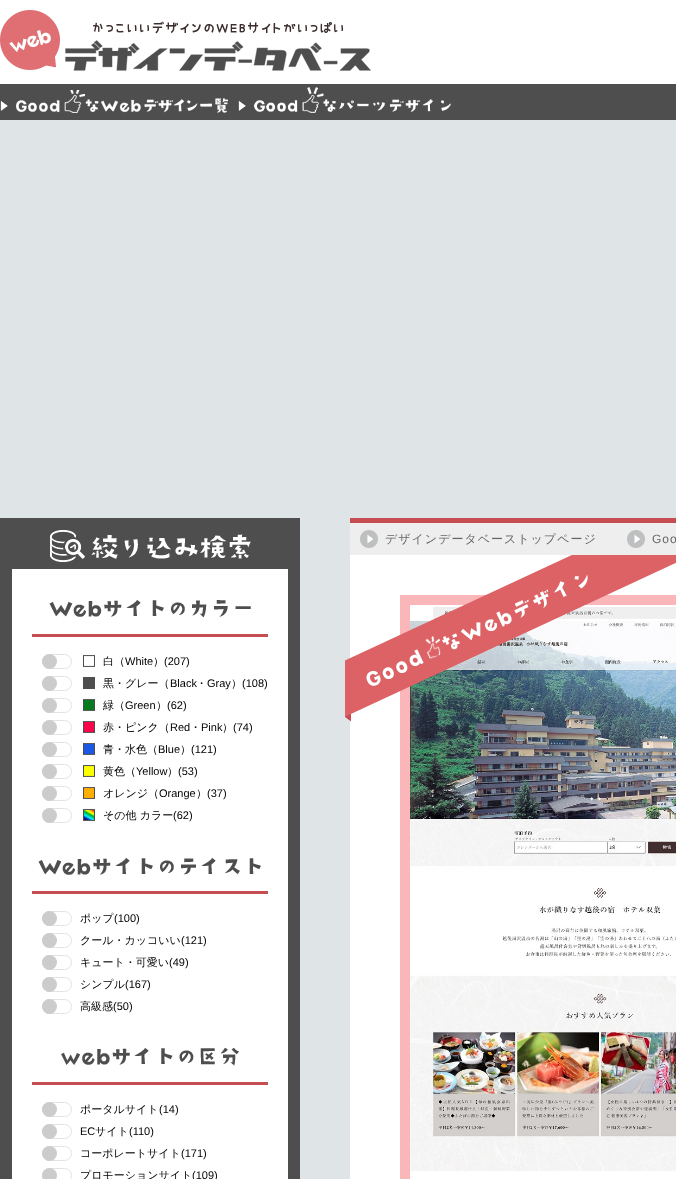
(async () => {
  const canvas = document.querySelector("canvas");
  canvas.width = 676;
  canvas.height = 1179;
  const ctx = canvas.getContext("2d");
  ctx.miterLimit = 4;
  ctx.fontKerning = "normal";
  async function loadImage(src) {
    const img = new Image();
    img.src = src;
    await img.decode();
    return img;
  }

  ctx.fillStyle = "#dfe5e6";
  ctx.fillRect(0, 0, 676, 1179);
  ctx.fillStyle = "#ffffff";
  ctx.fillRect(0, 0, 676, 84);
  ctx.drawImage(await loadImage("img/1.png"), 0, 10, 371, 61);
  ctx.fillStyle = "#4e4e4e";
  ctx.fillRect(0, 84, 676, 36);
  ctx.drawImage(await loadImage("img/2.png"), 0, 90, 228, 23);
  ctx.drawImage(await loadImage("img/3.png"), 238, 87, 213, 26);
  for (const [x, y, w, h, color] of [
    [350, 555, 326, 624, "#ffffff"],
    [350, 518, 326, 5, "#c64e52"],
    [350, 523, 326, 32, "#eeeeee"],
  ]) {
    ctx.fillStyle = color;
    ctx.fillRect(x, y, w, h);
  }
  ctx.drawImage(await loadImage("img/4.png"), 360, 530, 18, 18);
  ctx.drawImage(await loadImage("img/4.png"), 627, 530, 18, 18);
  ctx.fillStyle = "#fab6b8";
  ctx.fillRect(400, 595, 276, 584);
  ctx.drawImage(await loadImage("img/6.png"), 410, 605, 266, 574);
  ctx.drawImage(await loadImage("img/5.png"), 345, 555, 331, 167);
  ctx.fillStyle = "#4e4e4e";
  ctx.fillRect(0, 518, 300, 661);
  ctx.drawImage(await loadImage("img/7.png"), 50, 530, 201, 32);
  ctx.fillStyle = "#ffffff";
  ctx.fillRect(12, 569, 276, 610);
  ctx.fillStyle = "#c64e52";
  ctx.fillRect(32, 634, 236, 3);
  ctx.drawImage(await loadImage("img/8.png"), 49, 599, 202, 19);
  ctx.beginPath();
  ctx.roundRect(42.5, 654.5, 29, 14, 7);
  ctx.strokeStyle = "#e4e3e1";
  ctx.stroke();
  ctx.fillStyle = "#cccccc";
  ctx.beginPath();
  ctx.arc(49.5, 661.5, 7.5, 0, Math.PI * 2);
  ctx.fill();
  ctx.drawImage(await loadImage("img/9.png"), 83, 655, 12, 12);
  ctx.beginPath();
  ctx.roundRect(42.5, 676.5, 29, 14, 7);
  ctx.stroke();
  ctx.beginPath();
  ctx.arc(49.5, 683.5, 7.5, 0, Math.PI * 2);
  ctx.fill();
  ctx.fillStyle = "#4e4e4e";
  ctx.fillRect(83, 677, 12, 12);
  ctx.beginPath();
  ctx.roundRect(42.5, 698.5, 29, 14, 7);
  ctx.stroke();
  ctx.fillStyle = "#cccccc";
  ctx.beginPath();
  ctx.arc(49.5, 705.5, 7.5, 0, Math.PI * 2);
  ctx.fill();
  ctx.drawImage(await loadImage("img/10.png"), 83, 699, 12, 12);
  ctx.beginPath();
  ctx.roundRect(42.5, 720.5, 29, 14, 7);
  ctx.stroke();
  ctx.beginPath();
  ctx.arc(49.5, 727.5, 7.5, 0, Math.PI * 2);
  ctx.fill();
  ctx.drawImage(await loadImage("img/11.png"), 83, 721, 12, 12);
  ctx.beginPath();
  ctx.roundRect(42.5, 742.5, 29, 14, 7);
  ctx.stroke();
  ctx.beginPath();
  ctx.arc(49.5, 749.5, 7.5, 0, Math.PI * 2);
  ctx.fill();
  ctx.drawImage(await loadImage("img/12.png"), 83, 743, 12, 12);
  ctx.beginPath();
  ctx.roundRect(42.5, 764.5, 29, 14, 7);
  ctx.stroke();
  ctx.beginPath();
  ctx.arc(49.5, 771.5, 7.5, 0, Math.PI * 2);
  ctx.fill();
  ctx.drawImage(await loadImage("img/13.png"), 83, 765, 12, 12);
  ctx.beginPath();
  ctx.roundRect(42.5, 786.5, 29, 14, 7);
  ctx.stroke();
  ctx.beginPath();
  ctx.arc(49.5, 793.5, 7.5, 0, Math.PI * 2);
  ctx.fill();
  ctx.drawImage(await loadImage("img/14.png"), 83, 787, 12, 12);
  ctx.beginPath();
  ctx.roundRect(42.5, 808.5, 29, 14, 7);
  ctx.stroke();
  ctx.beginPath();
  ctx.arc(49.5, 815.5, 7.5, 0, Math.PI * 2);
  ctx.fill();
  ctx.drawImage(await loadImage("img/15.png"), 83, 809, 12, 12);
  ctx.fillStyle = "#c64e52";
  ctx.fillRect(32, 891, 236, 3);
  ctx.drawImage(await loadImage("img/16.png"), 38, 857, 223, 18);
  ctx.beginPath();
  ctx.roundRect(42.5, 911.5, 29, 14, 7);
  ctx.stroke();
  ctx.fillStyle = "#cccccc";
  ctx.beginPath();
  ctx.arc(49.5, 918.5, 7.5, 0, Math.PI * 2);
  ctx.fill();
  ctx.beginPath();
  ctx.roundRect(42.5, 933.5, 29, 14, 7);
  ctx.stroke();
  ctx.beginPath();
  ctx.arc(49.5, 940.5, 7.5, 0, Math.PI * 2);
  ctx.fill();
  ctx.beginPath();
  ctx.roundRect(42.5, 955.5, 29, 14, 7);
  ctx.stroke();
  ctx.beginPath();
  ctx.arc(49.5, 962.5, 7.5, 0, Math.PI * 2);
  ctx.fill();
  ctx.beginPath();
  ctx.roundRect(42.5, 977.5, 29, 14, 7);
  ctx.stroke();
  ctx.beginPath();
  ctx.arc(49.5, 984.5, 7.5, 0, Math.PI * 2);
  ctx.fill();
  ctx.beginPath();
  ctx.roundRect(42.5, 999.5, 29, 14, 7);
  ctx.stroke();
  ctx.beginPath();
  ctx.arc(49.5, 1006.5, 7.5, 0, Math.PI * 2);
  ctx.fill();
  ctx.fillStyle = "#c64e52";
  ctx.fillRect(32, 1082, 236, 3);
  ctx.drawImage(await loadImage("img/17.png"), 61, 1047, 178, 19);
  ctx.beginPath();
  ctx.roundRect(42.5, 1102.5, 29, 14, 7);
  ctx.stroke();
  ctx.fillStyle = "#cccccc";
  ctx.beginPath();
  ctx.arc(49.5, 1109.5, 7.5, 0, Math.PI * 2);
  ctx.fill();
  ctx.beginPath();
  ctx.roundRect(42.5, 1124.5, 29, 14, 7);
  ctx.stroke();
  ctx.beginPath();
  ctx.arc(49.5, 1131.5, 7.5, 0, Math.PI * 2);
  ctx.fill();
  ctx.beginPath();
  ctx.roundRect(42.5, 1146.5, 29, 14, 7);
  ctx.stroke();
  ctx.beginPath();
  ctx.arc(49.5, 1153.5, 7.5, 0, Math.PI * 2);
  ctx.fill();
  ctx.beginPath();
  ctx.roundRect(42.5, 1168.5, 29, 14, 7);
  ctx.stroke();
  ctx.beginPath();
  ctx.arc(49.5, 1175.5, 7.5, 0, Math.PI * 2);
  ctx.fill();
  ctx.letterSpacing = "1px";
  ctx.font = "500 12px WenQuanYi Zen Hei";
  ctx.fillStyle = "#666666";
  ctx.fillText("デザインデータベーストップページ", 385, 543);
  ctx.font = "12px Liberation Sans";
  ctx.fillText("Goo", 652, 543);
  ctx.letterSpacing = "0px";
  ctx.font = "500 11px WenQuanYi Zen Hei";
  ctx.fillStyle = "#000000";
  ctx.fillText("白（", 103, 665);
  ctx.font = "11px Liberation Sans";
  ctx.fillText("White", 125, 665);
  ctx.font = "500 11px WenQuanYi Zen Hei";
  ctx.fillText("）", 153, 665);
  ctx.font = "11px Liberation Sans";
  ctx.fillText("(207)", 164, 665);
  ctx.font = "500 11px WenQuanYi Zen Hei";
  ctx.fillText("黒・グレー（", 103, 687);
  ctx.font = "11px Liberation Sans";
  ctx.fillText("Black", 170, 687);
  ctx.font = "500 11px WenQuanYi Zen Hei";
  ctx.fillText("・", 196, 687);
  ctx.font = "11px Liberation Sans";
  ctx.fillText("Gray", 207, 687);
  ctx.font = "500 11px WenQuanYi Zen Hei";
  ctx.fillText("）", 231, 687);
  ctx.font = "11px Liberation Sans";
  ctx.fillText("(108)", 242, 687);
  ctx.font = "500 11px WenQuanYi Zen Hei";
  ctx.fillText("緑（", 103, 709);
  ctx.font = "11px Liberation Sans";
  ctx.fillText("Green", 125, 709);
  ctx.font = "500 11px WenQuanYi Zen Hei";
  ctx.fillText("）", 156, 709);
  ctx.font = "11px Liberation Sans";
  ctx.fillText("(62)", 167, 709);
  ctx.font = "500 11px WenQuanYi Zen Hei";
  ctx.fillText("赤・ピンク（", 103, 731);
  ctx.font = "11px Liberation Sans";
  ctx.fillText("Red", 170, 731);
  ctx.font = "500 11px WenQuanYi Zen Hei";
  ctx.fillText("・", 190, 731);
  ctx.font = "11px Liberation Sans";
  ctx.fillText("Pink", 201, 731);
  ctx.font = "500 11px WenQuanYi Zen Hei";
  ctx.fillText("）", 222, 731);
  ctx.font = "11px Liberation Sans";
  ctx.fillText("(74)", 233, 731);
  ctx.font = "500 11px WenQuanYi Zen Hei";
  ctx.fillText("青・水色（", 103, 753);
  ctx.font = "11px Liberation Sans";
  ctx.fillText("Blue", 158, 753);
  ctx.font = "500 11px WenQuanYi Zen Hei";
  ctx.fillText("）", 180, 753);
  ctx.font = "11px Liberation Sans";
  ctx.fillText("(121)", 191, 753);
  ctx.font = "500 11px WenQuanYi Zen Hei";
  ctx.fillText("黄色（", 103, 775);
  ctx.font = "11px Liberation Sans";
  ctx.fillText("Yellow", 136, 775);
  ctx.font = "500 11px WenQuanYi Zen Hei";
  ctx.fillText("）", 167, 775);
  ctx.font = "11px Liberation Sans";
  ctx.fillText("(53)", 178, 775);
  ctx.font = "500 11px WenQuanYi Zen Hei";
  ctx.fillText("オレンジ（", 103, 797);
  ctx.font = "11px Liberation Sans";
  ctx.fillText("Orange", 159, 797);
  ctx.font = "500 11px WenQuanYi Zen Hei";
  ctx.fillText("）", 196, 797);
  ctx.font = "11px Liberation Sans";
  ctx.fillText("(37)", 207, 797);
  ctx.font = "500 11px WenQuanYi Zen Hei";
  ctx.fillText("その他 カラー", 103, 819);
  ctx.font = "11px Liberation Sans";
  ctx.fillText("(62)", 173, 819);
  ctx.font = "500 11px WenQuanYi Zen Hei";
  ctx.fillText("ポップ", 80, 922);
  ctx.font = "11px Liberation Sans";
  ctx.fillText("(100)", 114, 922);
  ctx.font = "500 11px WenQuanYi Zen Hei";
  ctx.fillText("クール・カッコいい", 80, 944);
  ctx.font = "11px Liberation Sans";
  ctx.fillText("(121)", 181, 944);
  ctx.font = "500 11px WenQuanYi Zen Hei";
  ctx.fillText("キュート・可愛い", 80, 966);
  ctx.font = "11px Liberation Sans";
  ctx.fillText("(49)", 169, 966);
  ctx.font = "500 11px WenQuanYi Zen Hei";
  ctx.fillText("シンプル", 80, 988);
  ctx.font = "11px Liberation Sans";
  ctx.fillText("(167)", 125, 988);
  ctx.font = "500 11px WenQuanYi Zen Hei";
  ctx.fillText("高級感", 80, 1010);
  ctx.font = "11px Liberation Sans";
  ctx.fillText("(50)", 113, 1010);
  ctx.font = "500 11px WenQuanYi Zen Hei";
  ctx.fillText("ポータルサイト", 80, 1113);
  ctx.font = "11px Liberation Sans";
  ctx.fillText("(14)", 159, 1113);
  ctx.fillText("EC", 80, 1135);
  ctx.font = "500 11px WenQuanYi Zen Hei";
  ctx.fillText("サイト", 95, 1135);
  ctx.font = "11px Liberation Sans";
  ctx.fillText("(110)", 129, 1135);
  ctx.font = "500 11px WenQuanYi Zen Hei";
  ctx.fillText("コーポレートサイト", 80, 1157);
  ctx.font = "11px Liberation Sans";
  ctx.fillText("(171)", 181, 1157);
  ctx.font = "500 11px WenQuanYi Zen Hei";
  ctx.fillText("プロモーションサイト", 80, 1179);
  ctx.font = "11px Liberation Sans";
  ctx.fillText("(109)", 192, 1179);
})();
